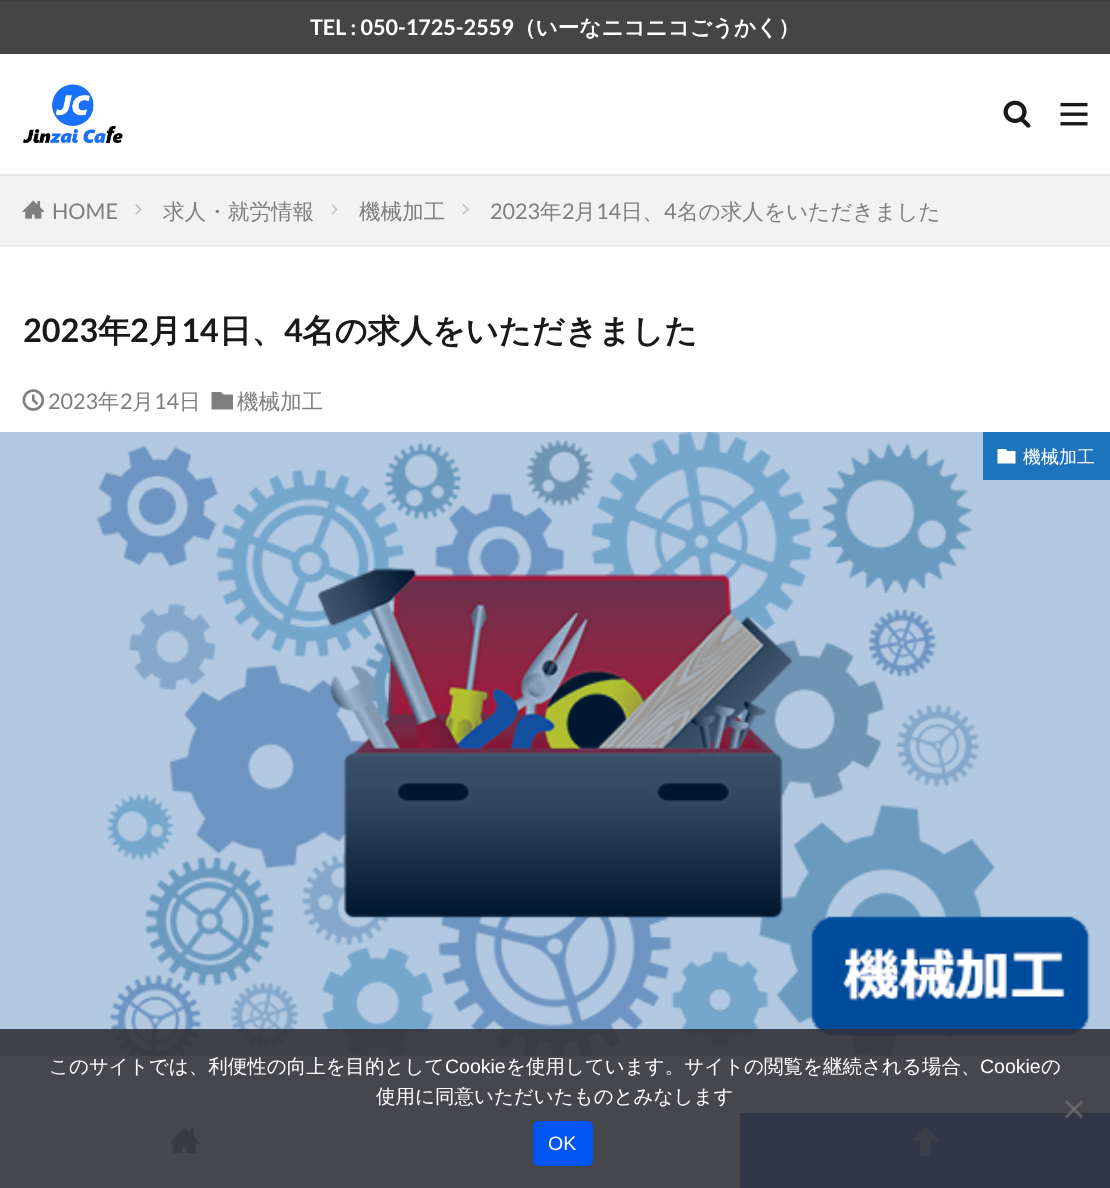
(async () => {
  const canvas = document.querySelector("canvas");
  canvas.width = 1110;
  canvas.height = 1188;
  const ctx = canvas.getContext("2d");
  ctx.miterLimit = 4;
  ctx.fontKerning = "normal";
  async function loadImage(src) {
    const img = new Image();
    img.src = src;
    await img.decode();
    return img;
  }
  let path;

  ctx.fillStyle = "#ffffff";
  ctx.fillRect(0, 0, 1110, 1188);
  for (const [x, y, w, h, color] of [
    [0, 246, 1110, 1, "#f2f2f2"],
    [0, 0, 1110, 1, "#3e3e3e"],
    [0, 1, 1110, 53, "#454545"],
    [0, 174, 1110, 2, "#e6e6e6"],
  ]) {
    ctx.fillStyle = color;
    ctx.fillRect(x, y, w, h);
  }
  ctx.drawImage(await loadImage("img/1.png"), 23, 84, 100, 60);
  ctx.drawImage(await loadImage("img/2.png"), 1003, 100, 28, 28);
  ctx.drawImage(await loadImage("img/3.png"), 1060, 102, 28, 24);
  ctx.fillStyle = "#f2f2f2";
  ctx.fillRect(0, 176, 1110, 69);
  ctx.fillStyle = "#e6e6e6";
  ctx.fillRect(0, 245, 1110, 1);
  ctx.drawImage(await loadImage("img/4.png"), 22, 200, 23, 19);
  ctx.fillStyle = "#bfbfbf";
  path = new Path2D("M136.5 204L141.5 209.5L140.5 210.5L135 205Z");
  ctx.fill(path);
  path = new Path2D("M140.5 208.5L141.5 209.5L136.5 214.5L135 213.5Z");
  ctx.fill(path);
  path = new Path2D("M332.5 204L337.5 209.5L336.5 210.5L331.5 205Z");
  ctx.fill(path);
  path = new Path2D("M336.5 208.5L337.5 209.5L332.5 214.5L331.5 213.5Z");
  ctx.fill(path);
  path = new Path2D("M463.5 204L469 209.5L468 210.5L462.5 205Z");
  ctx.fill(path);
  path = new Path2D("M468 208.5L469 209.5L463.5 214.5L462.5 213.5Z");
  ctx.fill(path);
  ctx.drawImage(await loadImage("img/5.png"), 22, 389, 23, 22);
  ctx.fillStyle = "#808080";
  path = new Path2D("M221 392L223.5 394.5H233V409.5H211.5V392Z");
  ctx.fill(path);
  ctx.drawImage(await loadImage("img/6.png"), 0, 432, 1110, 624);
  ctx.fillStyle = "#1e73be";
  ctx.fillRect(983, 432, 127, 48);
  ctx.fillStyle = "#ffffff";
  path = new Path2D("M1005.5 449L1007.5 451H1015.5V463.5H997.5V449Z");
  ctx.fill(path);
  ctx.drawImage(await loadImage("img/7.png"), 169, 1127, 31, 26);
  ctx.fillStyle = "#1e73be";
  ctx.fillRect(740, 1113, 370, 75);
  ctx.fillStyle = "#8fb9df";
  path = new Path2D("M925.5 1126.5L911.5 1140.5H920V1155.5H931V1140.5H939.5Z");
  ctx.fill(path);
  ctx.fillStyle = "rgba(50, 50, 58, 0.9)";
  ctx.fillRect(0, 1029, 1110, 159);
  ctx.fillStyle = "rgba(128, 128, 128, 0.5)";
  path = new Path2D("M1081 1100L1083 1102.5L1067 1118.5L1065 1116Z");
  ctx.fill(path);
  path = new Path2D("M1065 1102.5L1067 1100L1083 1116L1081 1118.5Z");
  ctx.fill(path);
  ctx.fillStyle = "#0054f2";
  ctx.beginPath();
  ctx.roundRect(533, 1121, 60, 45, 5);
  ctx.fill();
  ctx.font = "bold 21.6px Lato";
  ctx.fillStyle = "#ffffff";
  ctx.fillText("TEL : 050-1725-2559", 310, 35);
  ctx.font = "bold 21.6px WenQuanYi Zen Hei";
  ctx.fillText("（いーなニコニコごうかく）", 514, 35);
  ctx.font = "21.6px Lato";
  ctx.fillStyle = "#7f7f7f";
  ctx.fillText("HOME", 52, 219);
  ctx.font = "500 21.6px WenQuanYi Zen Hei";
  ctx.fillText("求人・就労情報", 163, 219);
  ctx.fillText("機械加工", 359, 219);
  ctx.font = "21.6px Lato";
  ctx.fillText("2023", 490, 219);
  ctx.font = "500 21.6px WenQuanYi Zen Hei";
  ctx.fillText("年", 540, 219);
  ctx.font = "21.6px Lato";
  ctx.fillText("2", 562, 219);
  ctx.font = "500 21.6px WenQuanYi Zen Hei";
  ctx.fillText("月", 574, 219);
  ctx.font = "21.6px Lato";
  ctx.fillText("14", 596, 219);
  ctx.font = "500 21.6px WenQuanYi Zen Hei";
  ctx.fillText("日、", 621, 219);
  ctx.font = "21.6px Lato";
  ctx.fillText("4", 664, 219);
  ctx.font = "500 21.6px WenQuanYi Zen Hei";
  ctx.fillText("名の求人をいただきました", 677, 219);
  ctx.font = "bold 32.4px Lato";
  ctx.fillStyle = "#191919";
  ctx.fillText("2023", 23, 342);
  ctx.font = "bold 32.4px WenQuanYi Zen Hei";
  ctx.fillText("年", 98, 342);
  ctx.font = "bold 32.4px Lato";
  ctx.fillText("2", 130, 342);
  ctx.font = "bold 32.4px WenQuanYi Zen Hei";
  ctx.fillText("月", 149, 342);
  ctx.font = "bold 32.4px Lato";
  ctx.fillText("14", 181, 342);
  ctx.font = "bold 32.4px WenQuanYi Zen Hei";
  ctx.fillText("日、", 219, 342);
  ctx.font = "bold 32.4px Lato";
  ctx.fillText("4", 284, 342);
  ctx.font = "bold 32.4px WenQuanYi Zen Hei";
  ctx.fillText("名の求人をいただきました", 302, 342);
  ctx.font = "21.6px Lato";
  ctx.fillStyle = "#7f7f7f";
  ctx.fillText("2023", 48, 409);
  ctx.font = "500 21.6px WenQuanYi Zen Hei";
  ctx.fillText("年", 98, 409);
  ctx.font = "21.6px Lato";
  ctx.fillText("2", 120, 409);
  ctx.font = "500 21.6px WenQuanYi Zen Hei";
  ctx.fillText("月", 132, 409);
  ctx.font = "21.6px Lato";
  ctx.fillText("14", 154, 409);
  ctx.font = "500 21.6px WenQuanYi Zen Hei";
  ctx.fillText("日", 179, 409);
  ctx.fillText("機械加工", 237, 409);
  ctx.font = "500 18px WenQuanYi Zen Hei";
  ctx.fillStyle = "#ffffff";
  ctx.fillText("機械加工", 1023, 463);
  ctx.font = "500 19.5px WenQuanYi Zen Hei";
  ctx.fillText("このサイトでは、利便性の向上を目的として", 49, 1073);
  ctx.font = "19.5px Liberation Sans";
  ctx.fillText("Cookie", 445, 1073);
  ctx.font = "500 19.5px WenQuanYi Zen Hei";
  ctx.fillText("を使用しています。サイトの閲覧を継続される場合、", 506, 1073);
  ctx.font = "19.5px Liberation Sans";
  ctx.fillText("Cookie", 980, 1073);
  ctx.font = "500 19.5px WenQuanYi Zen Hei";
  ctx.fillText("の", 1041, 1073);
  ctx.fillText("使用に同意いただいたものとみなします", 376, 1103);
  ctx.font = "19.5px Liberation Sans";
  ctx.fillText("OK", 548, 1150);
})();
